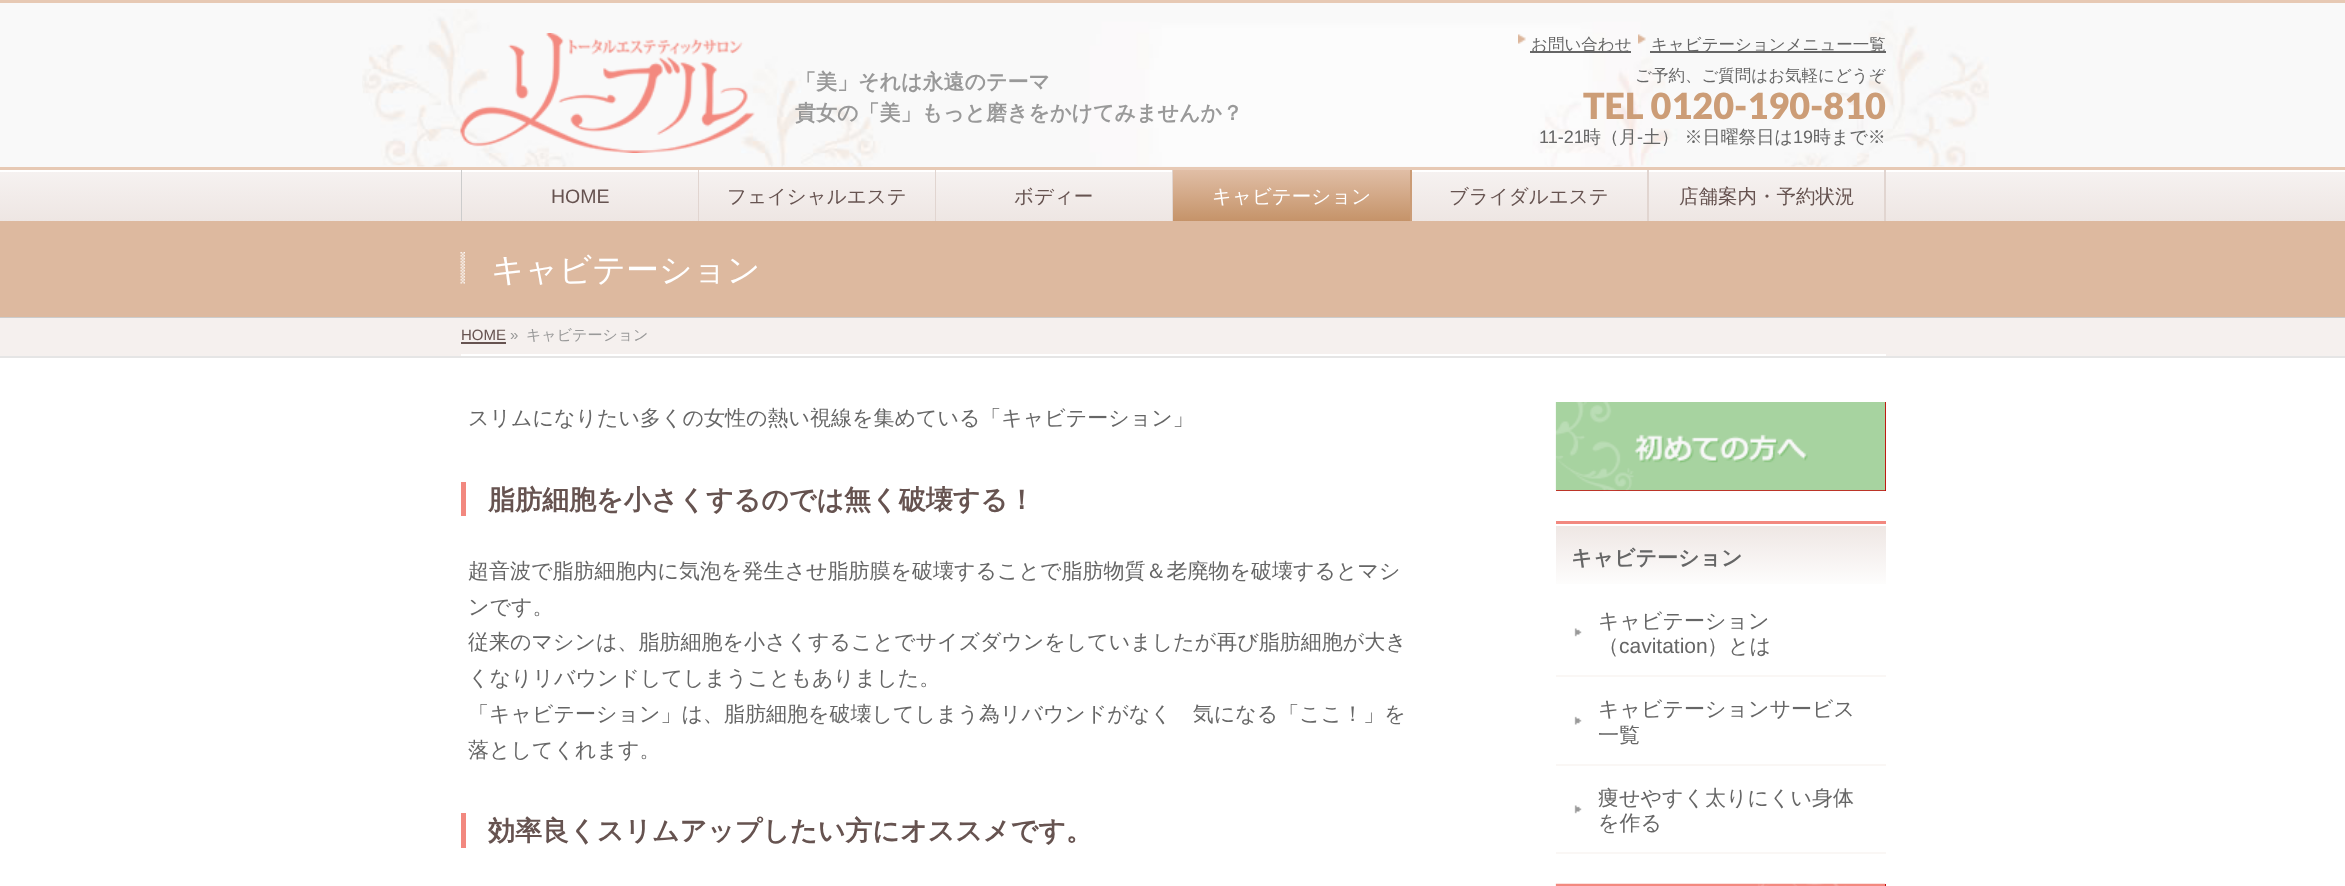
(async () => {
  const canvas = document.querySelector("canvas");
  canvas.width = 2345;
  canvas.height = 886;
  const ctx = canvas.getContext("2d");
  ctx.miterLimit = 4;
  ctx.fontKerning = "normal";
  async function loadImage(src) {
    const img = new Image();
    img.src = src;
    await img.decode();
    return img;
  }
  let gradient;

  ctx.fillStyle = "#ffffff";
  ctx.fillRect(0, 0, 2345, 886);
  ctx.fillStyle = "#f9f9f9";
  ctx.fillRect(0, 3, 2345, 164);
  ctx.fillStyle = "#e7c9b4";
  ctx.fillRect(0, 0, 2345, 3);
  ctx.drawImage(await loadImage("img/1.png"), 362, 9, 1627, 158);
  ctx.drawImage(await loadImage("img/2.png"), 460, 33, 295, 120);
  ctx.drawImage(await loadImage("img/3.png"), 1518, 34, 8, 10);
  ctx.fillStyle = "#666666";
  ctx.fillRect(1530, 51, 101, 2);
  ctx.drawImage(await loadImage("img/4.png"), 1638, 34, 8, 10);
  ctx.fillRect(1650, 51, 236, 2);
  gradient = ctx.createLinearGradient(0, 170, 0, 221);
  gradient.addColorStop(0, "#f6f2f1");
  gradient.addColorStop(1, "#eee6e3");
  ctx.fillStyle = gradient;
  ctx.fillRect(0, 172, 2345, 49);
  for (const [x, y, w, h, color] of [
    [0, 167, 2345, 3, "#e7c9b4"],
    [461, 170, 1, 51, "#cccccc"],
    [698, 170, 1, 51, "#e1d5d0"],
    [935, 170, 1, 51, "#e1d5d0"],
    [1172, 170, 1, 51, "#e1d5d0"],
  ]) {
    ctx.fillStyle = color;
    ctx.fillRect(x, y, w, h);
  }
  gradient = ctx.createLinearGradient(1292, 169, 1292, 221);
  gradient.addColorStop(0, "#e1bfa7");
  gradient.addColorStop(1, "#c59369");
  ctx.fillStyle = gradient;
  ctx.fillRect(1173, 170, 237, 51);
  for (const [x, y, w, h, color] of [
    [1410, 170, 2, 51, "#cb9c76"],
    [1647, 170, 2, 51, "#e1d5d0"],
    [1884, 170, 2, 51, "#e1d5d0"],
    [0, 221, 2345, 96, "#ddb99f"],
    [0, 317, 2345, 1, "#cccccc"],
  ]) {
    ctx.fillStyle = color;
    ctx.fillRect(x, y, w, h);
  }
  ctx.drawImage(await loadImage("img/5.png"), 460, 252, 5, 32);
  for (const [x, y, w, h, color] of [
    [0, 318, 2345, 38, "#f5f0ee"],
    [0, 356, 2345, 2, "#e5e5e5"],
    [461, 354, 1425, 2, "#ffffff"],
    [461, 342, 45, 2, "#665350"],
    [461, 482, 5, 34, "#f2887f"],
    [461, 813, 5, 35, "#f2887f"],
    [1556, 402, 330, 89, "#c30000"],
  ]) {
    ctx.fillStyle = color;
    ctx.fillRect(x, y, w, h);
  }
  ctx.drawImage(await loadImage("img/6.png"), 1555, 402, 331, 89);
  gradient = ctx.createLinearGradient(1556, 524, 1556, 590);
  gradient.addColorStop(0, "#eee6e3");
  gradient.addColorStop(1, "#ffffff");
  ctx.fillStyle = gradient;
  ctx.fillRect(1556, 526, 330, 58);
  ctx.fillStyle = "#f2887f";
  ctx.fillRect(1556, 521, 330, 3);
  ctx.fillStyle = "#faf7f5";
  ctx.fillRect(1556, 675, 330, 2);
  ctx.drawImage(await loadImage("img/7.png"), 1574, 628, 8, 9);
  ctx.fillRect(1556, 764, 330, 2);
  ctx.drawImage(await loadImage("img/8.png"), 1574, 716, 8, 9);
  ctx.fillRect(1556, 852, 330, 2);
  ctx.drawImage(await loadImage("img/7.png"), 1574, 805, 8, 9);
  ctx.fillStyle = "#c30000";
  ctx.fillRect(1885, 884, 1, 2);
  ctx.drawImage(await loadImage("img/9.png"), 1555, 883, 331, 3);
  ctx.font = "500 16.5px WenQuanYi Zen Hei";
  ctx.fillStyle = "#666666";
  ctx.fillText("お問い合わせ", 1531, 50);
  ctx.fillText("キャビテーションメニュー一覧", 1651, 50);
  ctx.font = "bold 21px WenQuanYi Zen Hei";
  ctx.fillStyle = "#999999";
  ctx.fillText("「美」それは永遠のテーマ", 795, 89);
  ctx.fillText("貴女の「美」もっと磨きをかけてみませんか？", 795, 120);
  ctx.font = "500 16.5px WenQuanYi Zen Hei";
  ctx.fillStyle = "#666666";
  ctx.fillText("ご予約、ご質問はお気軽にどうぞ", 1635, 81);
  ctx.font = "900 36px Lato";
  ctx.fillStyle = "#cc9d77";
  ctx.fillText("TEL 0120-190-810", 1583, 119);
  ctx.font = "18px Liberation Sans";
  ctx.fillStyle = "#666666";
  ctx.fillText("11-21", 1539, 143);
  ctx.font = "500 18px WenQuanYi Zen Hei";
  ctx.fillText("時（月", 1583, 143);
  ctx.font = "18px Liberation Sans";
  ctx.fillText("-", 1637, 143);
  ctx.font = "500 18px WenQuanYi Zen Hei";
  ctx.fillText("土） ※日曜祭日は", 1643, 143);
  ctx.font = "18px Liberation Sans";
  ctx.fillText("19", 1793, 143);
  ctx.font = "500 18px WenQuanYi Zen Hei";
  ctx.fillText("時まで※", 1813, 143);
  ctx.font = "19.5px Liberation Sans";
  ctx.fillStyle = "#665350";
  ctx.fillText("HOME", 551, 203);
  ctx.font = "500 19.5px WenQuanYi Zen Hei";
  ctx.fillText("フェイシャルエステ", 727, 203);
  ctx.fillText("ボディー", 1014, 203);
  ctx.fillStyle = "#ffffff";
  ctx.fillText("キャビテーション", 1212, 203);
  ctx.fillStyle = "#665350";
  ctx.fillText("ブライダルエステ", 1449, 203);
  ctx.fillText("店舗案内・予約状況", 1679, 203);
  ctx.font = "500 33px WenQuanYi Zen Hei";
  ctx.fillStyle = "#ffffff";
  ctx.fillText("キャビテーション", 491, 281);
  ctx.font = "15px Liberation Sans";
  ctx.fillStyle = "#665350";
  ctx.fillText("HOME", 461, 340);
  ctx.fillStyle = "#999999";
  ctx.fillText("»", 510, 340);
  ctx.font = "500 15px WenQuanYi Zen Hei";
  ctx.fillText("キャビテーション", 526, 340);
  ctx.font = "500 21px WenQuanYi Zen Hei";
  ctx.fillStyle = "#666666";
  ctx.fillText("スリムになりたい多くの女性の熱い視線を集めている「キャビテーション」", 468, 425);
  ctx.font = "bold 27px WenQuanYi Zen Hei";
  ctx.fillStyle = "#665350";
  ctx.fillText("脂肪細胞を小さくするのでは無く破壊する！", 488, 509);
  ctx.font = "500 21px WenQuanYi Zen Hei";
  ctx.fillStyle = "#666666";
  for (const [text, x, y] of [
    ["超音波で脂肪細胞内に気泡を発生させ脂肪膜を破壊することで脂肪物質＆老廃物を破壊するとマシ", 468, 578],
    ["ンです。", 468, 614],
    ["従来のマシンは、脂肪細胞を小さくすることでサイズダウンをしていましたが再び脂肪細胞が大き", 468, 649],
    ["くなりリバウンドしてしまうこともありました。", 468, 685],
    ["「キャビテーション」は、脂肪細胞を破壊してしまう為リバウンドがなく　気になる「ここ！」を", 468, 721],
    ["落としてくれます。", 468, 757],
  ]) {
    ctx.fillText(text, x, y);
  }
  ctx.font = "bold 27px WenQuanYi Zen Hei";
  ctx.fillStyle = "#665350";
  ctx.fillText("効率良くスリムアップしたい方にオススメです。", 488, 840);
  ctx.font = "bold 21px WenQuanYi Zen Hei";
  ctx.fillStyle = "#666666";
  ctx.fillText("キャビテーション", 1571, 565);
  ctx.font = "500 21px WenQuanYi Zen Hei";
  ctx.fillText("キャビテーション", 1598, 628);
  ctx.fillText("（", 1598, 653);
  ctx.font = "21px Liberation Sans";
  ctx.fillText("cavitation", 1619, 653);
  ctx.font = "500 21px WenQuanYi Zen Hei";
  for (const [text, x, y] of [
    ["）とは", 1707, 653],
    ["キャビテーションサービス", 1598, 716],
    ["一覧", 1598, 742],
    ["痩せやすく太りにくい身体", 1598, 805],
    ["を作る", 1598, 830],
  ]) {
    ctx.fillText(text, x, y);
  }
})();
